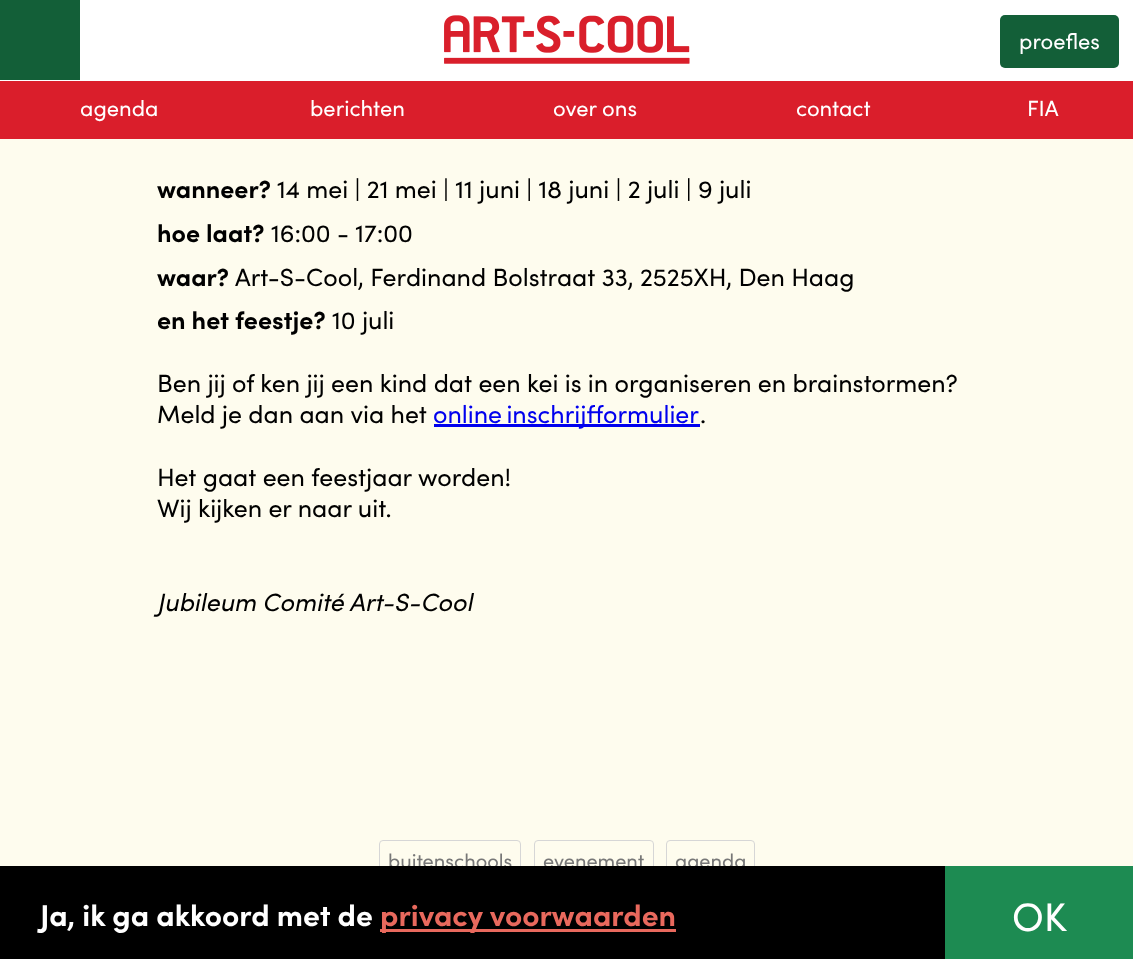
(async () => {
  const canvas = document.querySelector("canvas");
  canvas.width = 1133;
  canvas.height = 959;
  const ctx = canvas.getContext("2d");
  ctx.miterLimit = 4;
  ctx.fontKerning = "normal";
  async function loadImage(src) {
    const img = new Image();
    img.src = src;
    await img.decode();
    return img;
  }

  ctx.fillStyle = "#fefcee";
  ctx.fillRect(0, 0, 1133, 959);
  ctx.fillStyle = "#ffffff";
  ctx.fillRect(80, 0, 1053, 80);
  ctx.fillStyle = "#135f38";
  ctx.fillRect(0, 0, 80, 80);
  ctx.drawImage(await loadImage("img/1.png"), 444, 15, 246, 49);
  ctx.beginPath();
  ctx.roundRect(1000, 15, 119, 53, 5);
  ctx.fill();
  for (const [x, y, w, h, color] of [
    [0, 80, 1133, 1, "#ffffff"],
    [0, 81, 1133, 58, "#da1e2b"],
    [945, 866, 188, 93, "#1d8b52"],
    [434, 424, 266, 3, "#0000ee"],
  ]) {
    ctx.fillStyle = color;
    ctx.fillRect(x, y, w, h);
  }
  ctx.beginPath();
  ctx.roundRect(379.5, 840.5, 141, 40, 3.5);
  ctx.strokeStyle = "#d6d6d6";
  ctx.stroke();
  ctx.beginPath();
  ctx.roundRect(534.5, 840.5, 119, 40, 3.5);
  ctx.stroke();
  ctx.beginPath();
  ctx.roundRect(666.5, 840.5, 88, 40, 3.5);
  ctx.stroke();
  ctx.font = "22px Sofia";
  ctx.fillStyle = "#ffffff";
  for (const [text, x, y] of [
    ["proefles", 1019, 49],
    ["agenda", 80, 116],
    ["berichten", 310, 116],
    ["over ons", 553, 116],
    ["contact", 796, 116],
    ["FIA", 1027, 116],
  ]) {
    ctx.fillText(text, x, y);
  }
  ctx.font = "40px Sofia";
  ctx.fillText("OK", 1012, 931);
  ctx.font = "bold 25px Sofia";
  ctx.fillStyle = "#000000";
  ctx.fillText("wanneer?", 157, 198);
  ctx.font = "25px Sofia";
  ctx.fillText("14 mei | 21 mei | 11 juni | 18 juni | 2 juli | 9 juli", 277, 198);
  ctx.font = "bold 25px Sofia";
  ctx.fillText("hoe laat?", 157, 242);
  ctx.font = "25px Sofia";
  ctx.fillText("16:00 - 17:00", 271, 242);
  ctx.font = "bold 25px Sofia";
  ctx.fillText("waar?", 157, 286);
  ctx.font = "25px Sofia";
  ctx.fillText("Art-S-Cool, Ferdinand Bolstraat 33, 2525XH, Den Haag", 235, 286);
  ctx.font = "bold 25px Sofia";
  ctx.fillText("en het feestje?", 157, 329);
  ctx.font = "25px Sofia";
  for (const [text, x, y] of [
    ["10 juli", 332, 329],
    ["Ben jij of ken jij een kind dat een kei is in organiseren en brainstormen?", 157, 392],
    ["Meld je dan aan via het", 157, 423],
  ]) {
    ctx.fillText(text, x, y);
  }
  ctx.wordSpacing = "-2px";
  ctx.fillStyle = "#0000ee";
  ctx.fillText("online inschrijfformulier", 433, 423);
  ctx.wordSpacing = "0px";
  ctx.fillStyle = "#000000";
  for (const [text, x, y] of [
    [".", 700, 423],
    ["Het gaat een feestjaar worden!", 157, 486],
    ["Wij kijken er naar uit.", 157, 517],
  ]) {
    ctx.fillText(text, x, y);
  }
  ctx.font = "italic 25px Sofia";
  ctx.fillText("Jubileum Comité Art-S-Cool", 157, 611);
  ctx.font = "20px Sofia";
  ctx.fillStyle = "#777777";
  for (const [text, x, y] of [
    ["buitenschools", 388, 868],
    ["evenement", 543, 868],
    ["agenda", 675, 868],
  ]) {
    ctx.fillText(text, x, y);
  }
  ctx.fillStyle = "#000000";
  ctx.fillRect(0, 866, 945, 93);
  ctx.fillStyle = "#e9695d";
  ctx.fillRect(380, 929, 296, 3);
  ctx.font = "bold 30px Sofia";
  ctx.fillText("privacy voorwaarden", 380, 926);
  ctx.fillStyle = "#ffffff";
  ctx.fillText("Ja, ik ga akkoord met de", 40, 926);
})();
